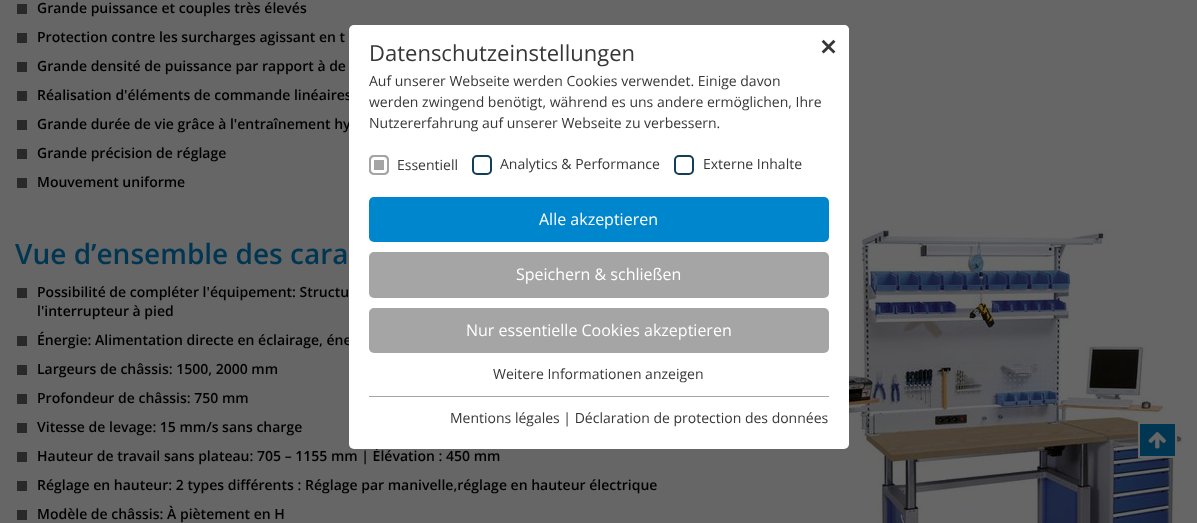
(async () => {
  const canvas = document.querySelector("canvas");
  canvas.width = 1197;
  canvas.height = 523;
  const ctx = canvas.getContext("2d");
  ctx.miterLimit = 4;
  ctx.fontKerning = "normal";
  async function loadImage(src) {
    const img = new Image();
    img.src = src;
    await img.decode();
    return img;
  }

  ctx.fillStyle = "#666666";
  ctx.fillRect(0, 0, 1197, 523);
  for (const [x, y, w, h, color] of [
    [17, 4, 10, 10, "#292929"],
    [17, 33, 10, 10, "#292929"],
    [17, 62, 10, 10, "#292929"],
    [17, 91, 10, 10, "#292929"],
    [17, 120, 10, 10, "#292929"],
    [17, 149, 10, 10, "#292929"],
    [17, 178, 10, 10, "#292929"],
    [17, 288, 10, 10, "#292929"],
    [17, 336, 10, 10, "#292929"],
    [17, 365, 10, 10, "#292929"],
    [17, 394, 10, 10, "#292929"],
    [17, 423, 10, 10, "#292929"],
    [17, 452, 10, 10, "#292929"],
    [17, 481, 10, 10, "#292929"],
    [17, 510, 10, 10, "#292929"],
  ]) {
    ctx.fillStyle = color;
    ctx.fillRect(x, y, w, h);
  }
  ctx.drawImage(await loadImage("img/1.png"), 782, 229, 400, 294);
  ctx.fillStyle = "#003652";
  ctx.beginPath();
  ctx.rect(1139, 423, 37, 34);
  ctx.fill();
  ctx.strokeStyle = "#666666";
  ctx.lineWidth = 2;
  ctx.stroke();
  ctx.drawImage(await loadImage("img/2.png"), 1148, 432, 18, 17);
  ctx.font = "600 14px Open Sans";
  ctx.fillStyle = "#000000";
  for (const [text, x, y] of [
    ["Grande puissance et couples très élevés", 37, 13],
    ["Protection contre les surcharges agissant en t", 37, 42],
    ["Grande densité de puissance par rapport à de", 37, 71],
    ["Réalisation d'éléments de commande linéaires", 37, 100],
    ["Grande durée de vie grâce à l'entraînement hy", 37, 129],
    ["Grande précision de réglage", 37, 158],
    ["Mouvement uniforme", 37, 187],
  ]) {
    ctx.fillText(text, x, y);
  }
  ctx.font = "600 28px Open Sans";
  ctx.fillStyle = "#003652";
  ctx.fillText("Vue d’ensemble des cara", 15, 264);
  ctx.font = "600 14px Open Sans";
  ctx.fillStyle = "#000000";
  for (const [text, x, y] of [
    ["Possibilité de compléter l'équipement: Structu", 37, 297],
    ["l'interrupteur à pied", 37, 316],
    ["Énergie: Alimentation directe en éclairage, éne", 37, 345],
    ["Largeurs de châssis: 1500, 2000 mm", 37, 374],
    ["Profondeur de châssis: 750 mm", 37, 403],
    ["Vitesse de levage: 15 mm/s sans charge", 37, 432],
    ["Hauteur de travail sans plateau: 705 – 1155 mm | Élévation : 450 mm", 37, 461],
    ["Réglage en hauteur: 2 types différents : Réglage par manivelle,réglage en hauteur électrique", 37, 490],
    ["Modèle de châssis: À piètement en H", 37, 519],
  ]) {
    ctx.fillText(text, x, y);
  }
  ctx.fillStyle = "#ffffff";
  ctx.beginPath();
  ctx.roundRect(349, 25, 500, 424, 5);
  ctx.fill();
  ctx.font = "22px Open Sans";
  ctx.fillStyle = "#373737";
  ctx.fillText("Datenschutzeinstellungen", 369, 61);
  ctx.fillStyle = "#ffffff";
  ctx.beginPath();
  ctx.roundRect(808, 25, 41, 43, [0, 5, 0, 0]);
  ctx.fill();
  ctx.font = "bold 22px DejaVu Sans";
  ctx.fillStyle = "#373737";
  ctx.fillText("✕", 819, 55);
  ctx.font = "14px Open Sans";
  for (const [text, x, y] of [
    ["Auf unserer Webseite werden Cookies verwendet. Einige davon", 369, 86],
    ["werden zwingend benötigt, während es uns andere ermöglichen, Ihre", 369, 107],
    ["Nutzererfahrung auf unserer Webseite zu verbessern.", 369, 128],
  ]) {
    ctx.fillText(text, x, y);
  }
  ctx.fillStyle = "#a5a5a5";
  ctx.beginPath();
  ctx.roundRect(369, 155, 20, 20, 5);
  ctx.fill();
  ctx.beginPath();
  ctx.roundRect(372.5, 158.5, 13, 13, 1.5);
  ctx.strokeStyle = "#ffffff";
  ctx.lineWidth = 3;
  ctx.stroke();
  ctx.beginPath();
  ctx.roundRect(370, 156, 18, 18, 4);
  ctx.strokeStyle = "#a5a5a5";
  ctx.lineWidth = 2;
  ctx.stroke();
  ctx.fillStyle = "#373737";
  ctx.fillText("Essentiell", 397, 170);
  ctx.beginPath();
  ctx.roundRect(473, 156, 18, 18, 4);
  ctx.strokeStyle = "#143d59";
  ctx.stroke();
  ctx.fillText("Analytics & Performance", 500, 169);
  ctx.beginPath();
  ctx.roundRect(675, 156, 18, 18, 4);
  ctx.stroke();
  ctx.fillText("Externe Inhalte", 703, 169);
  ctx.fillStyle = "#0086cd";
  ctx.beginPath();
  ctx.roundRect(369, 197, 460, 45, 5);
  ctx.fill();
  ctx.font = "16px Open Sans";
  ctx.fillStyle = "#ffffff";
  ctx.fillText("Alle akzeptieren", 539, 225);
  ctx.fillStyle = "#a5a5a5";
  ctx.beginPath();
  ctx.roundRect(369, 252, 460, 46, 5);
  ctx.fill();
  ctx.fillStyle = "#ffffff";
  ctx.fillText("Speichern & schließen", 516, 280);
  ctx.fillStyle = "#a5a5a5";
  ctx.beginPath();
  ctx.roundRect(369, 308, 460, 45, 5);
  ctx.fill();
  ctx.fillStyle = "#ffffff";
  ctx.fillText("Nur essentielle Cookies akzeptieren", 466, 336);
  ctx.font = "14px Open Sans";
  ctx.fillStyle = "#373737";
  ctx.fillText("Weitere Informationen anzeigen", 493, 379);
  ctx.fillStyle = "#a5a5a5";
  ctx.fillRect(369, 396, 460, 1);
  ctx.fillStyle = "#373737";
  ctx.fillText("Mentions légales | Déclaration de protection des données", 450, 423);
})();
